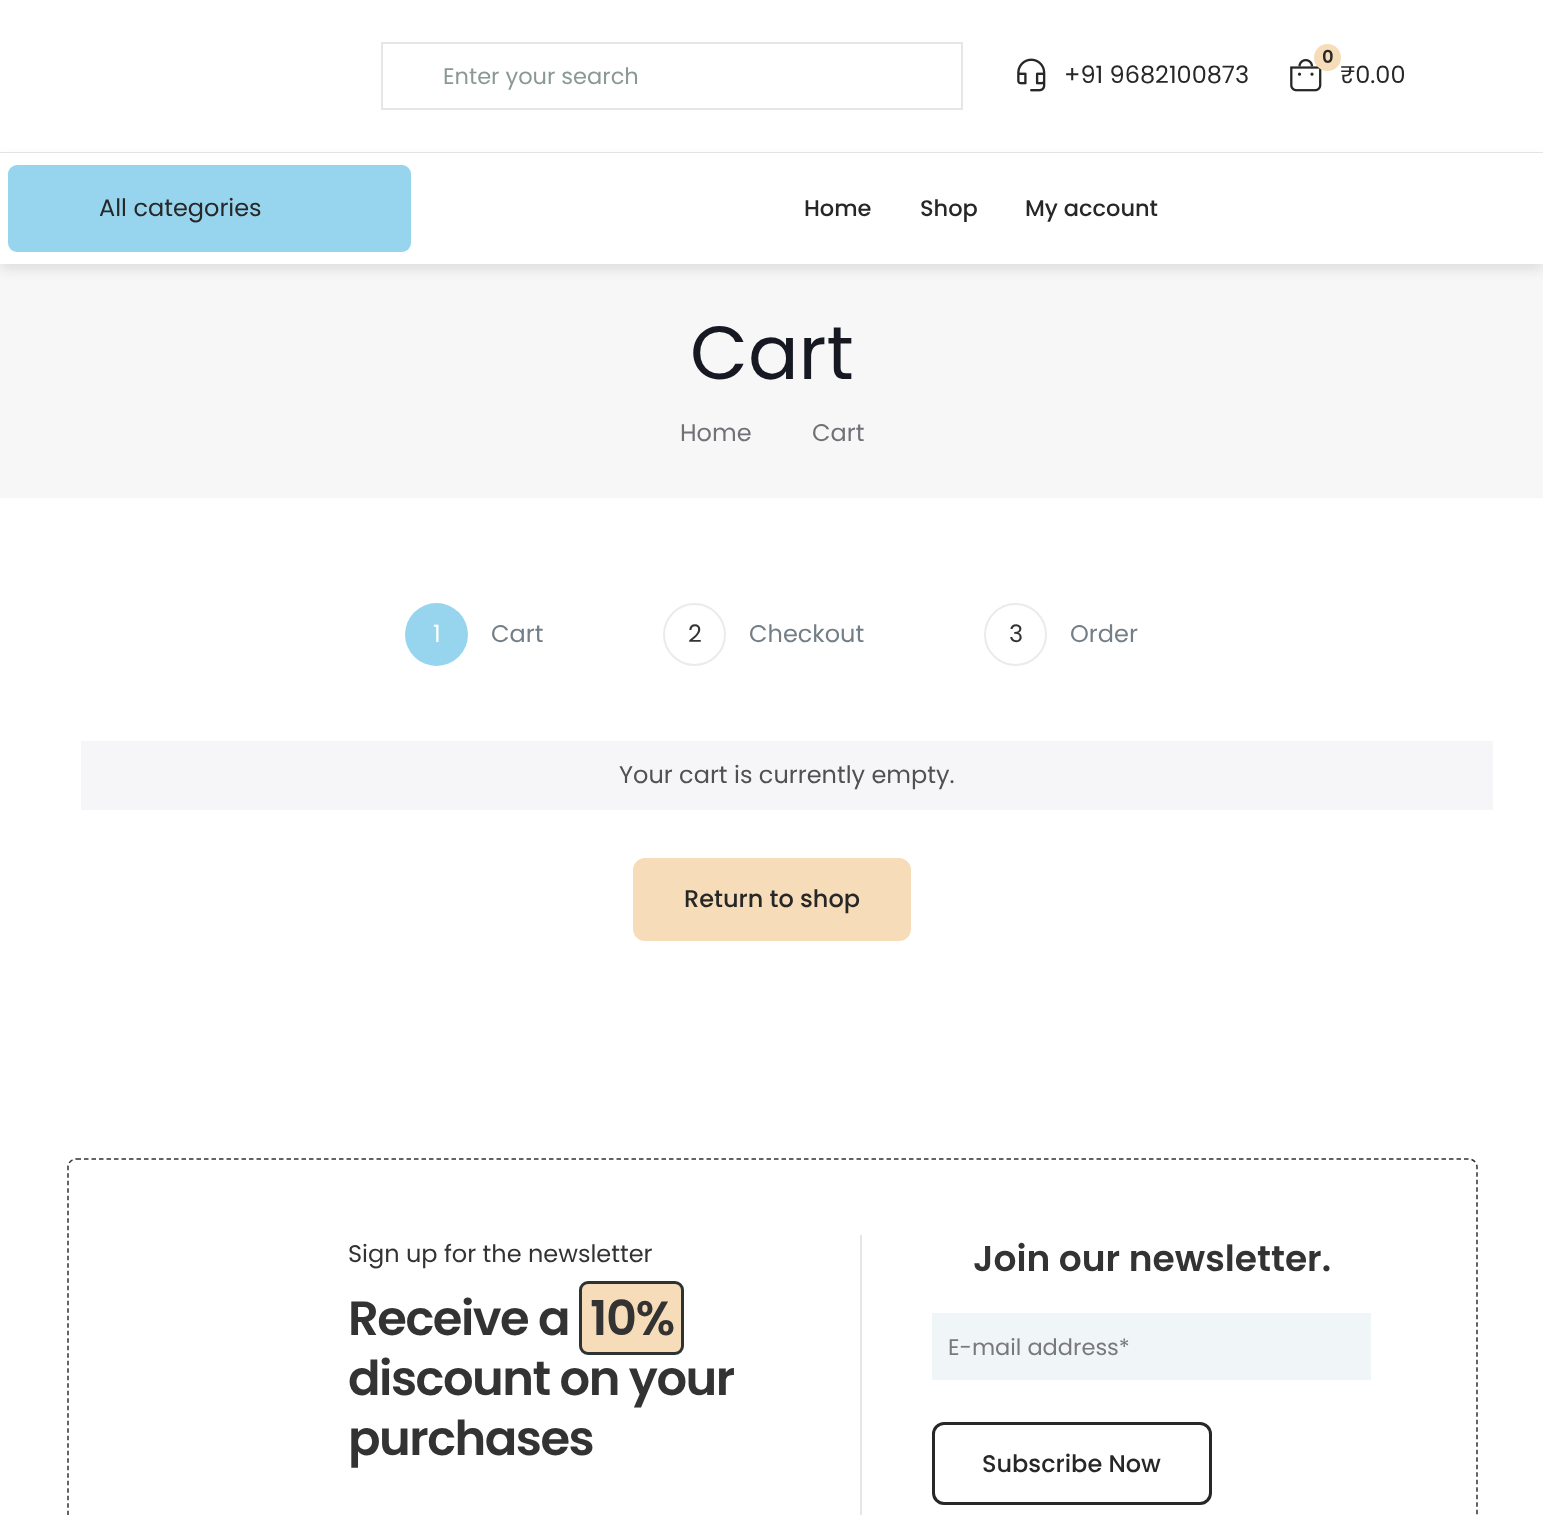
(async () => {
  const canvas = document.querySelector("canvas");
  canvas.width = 1543;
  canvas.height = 1515;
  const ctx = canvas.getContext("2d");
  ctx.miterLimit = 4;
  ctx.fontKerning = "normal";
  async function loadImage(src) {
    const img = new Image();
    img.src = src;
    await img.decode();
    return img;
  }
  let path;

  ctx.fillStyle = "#ffffff";
  ctx.fillRect(0, 0, 1543, 1515);
  ctx.fillStyle = "#e6e6e6";
  ctx.fillRect(0, 152, 1543, 1);
  ctx.strokeStyle = "#e6e6e6";
  ctx.lineWidth = 2;
  ctx.strokeRect(382, 43, 580, 66);
  ctx.drawImage(await loadImage("img/1.png"), 1017, 58, 29, 34);
  ctx.drawImage(await loadImage("img/2.png"), 1290, 59, 32, 33);
  ctx.fillStyle = "#f7f7f7";
  ctx.fillRect(0, 264, 1543, 234);
  ctx.fillStyle = "rgba(16, 24, 40, 0.1)";
  ctx.filter = "blur(6px)";
  ctx.beginPath();
  ctx.rect(0, 159, 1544, 111);
  ctx.fill();
  ctx.filter = "none";
  ctx.fillStyle = "#ffffff";
  ctx.fillRect(0, 153, 1543, 111);
  ctx.fillStyle = "#97d5ee";
  ctx.beginPath();
  ctx.roundRect(8, 165, 403, 87, 9);
  ctx.fill();
  ctx.beginPath();
  ctx.arc(436.5, 634.5, 31.5, 0, Math.PI * 2);
  ctx.fill();
  ctx.beginPath();
  ctx.arc(694.5, 634.5, 30.5, 0, Math.PI * 2);
  ctx.strokeStyle = "#ebebeb";
  ctx.stroke();
  ctx.beginPath();
  ctx.arc(1015.5, 634.5, 30.5, 0, Math.PI * 2);
  ctx.stroke();
  ctx.fillStyle = "#f6f5f8";
  ctx.fillRect(81, 741, 1412, 69);
  ctx.fillStyle = "#f6dcb8";
  ctx.beginPath();
  ctx.roundRect(634.5, 859.5, 275, 80, 10.5);
  ctx.fill();
  ctx.strokeStyle = "#f6dcb8";
  ctx.lineWidth = 3;
  ctx.stroke();
  path = new Path2D("M76.5 1159H1468.5C1473 1159 1477 1162.5 1477 1167V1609.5C1477 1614 1473 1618 1468.5 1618H76.5C72 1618 68 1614 68 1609.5V1167C68 1162.5 72 1159 76.5 1159Z");
  ctx.strokeStyle = "#2e3331";
  ctx.lineWidth = 1.5;
  ctx.setLineDash([4.5, 3]);
  ctx.stroke(path);
  ctx.fillStyle = "#e6e6e6";
  ctx.fillRect(860, 1235, 2, 280);
  ctx.fillStyle = "#f6dcb8";
  ctx.beginPath();
  ctx.roundRect(580.5, 1282.5, 102, 71, 7.5);
  ctx.fill();
  ctx.lineWidth = 3;
  ctx.setLineDash([]);
  ctx.stroke();
  ctx.fillStyle = "#f0f5f7";
  ctx.fillRect(932, 1313, 439, 67);
  ctx.beginPath();
  ctx.roundRect(933.5, 1423.5, 277, 80, 10.5);
  ctx.strokeStyle = "#272727";
  ctx.stroke();
  ctx.font = "22.5px Poppins";
  ctx.fillStyle = "#8a9992";
  ctx.fillText("Enter your search", 443, 84);
  ctx.font = "24px Poppins";
  ctx.fillStyle = "#272727";
  ctx.fillText("+91 9682100873", 1064, 83);
  ctx.fillText("₹0.00", 1340, 83);
  ctx.fillStyle = "#f6dcb8";
  ctx.beginPath();
  ctx.arc(1327.5, 57.5, 13.5, 0, Math.PI * 2);
  ctx.fill();
  ctx.font = "600 18px Poppins";
  ctx.fillStyle = "#272727";
  ctx.fillText("0", 1322, 63);
  ctx.font = "24px Poppins";
  ctx.fillText("All categories", 99, 216);
  ctx.font = "500 22.5px Poppins";
  for (const [text, x, y] of [
    ["Home", 804, 216],
    ["Shop", 920, 216],
    ["My account", 1025, 216],
  ]) {
    ctx.fillText(text, x, y);
  }
  ctx.font = "75px Poppins";
  ctx.fillStyle = "#161922";
  ctx.fillText("Cart", 690, 379);
  ctx.font = "24px Poppins";
  ctx.fillStyle = "#707277";
  ctx.fillText("Home", 680, 441);
  ctx.fillText("Cart", 812, 441);
  ctx.fillStyle = "#ffffff";
  ctx.fillText("1", 433, 642);
  ctx.fillStyle = "#737e86";
  ctx.fillText("Cart", 491, 642);
  ctx.fillStyle = "#333333";
  ctx.fillText("2", 688, 642);
  ctx.fillStyle = "#737e86";
  ctx.fillText("Checkout", 749, 642);
  ctx.fillStyle = "#333333";
  ctx.fillText("3", 1009, 642);
  ctx.fillStyle = "#737e86";
  ctx.fillText("Order", 1070, 642);
  ctx.fillStyle = "#515151";
  ctx.fillText("Your cart is currently empty.", 619, 783);
  ctx.font = "500 24px Poppins";
  ctx.fillStyle = "#272727";
  ctx.fillText("Return to shop", 684, 907);
  ctx.font = "24px Poppins";
  ctx.fillStyle = "#333333";
  ctx.fillText("Sign up for the newsletter", 348, 1262);
  ctx.letterSpacing = "-1.5px";
  ctx.font = "600 48px Poppins";
  for (const [text, x, y] of [
    ["Receive a", 348, 1335],
    ["10%", 590, 1335],
    ["discount on your", 348, 1395],
    ["purchases", 348, 1455],
  ]) {
    ctx.fillText(text, x, y);
  }
  ctx.letterSpacing = "0px";
  ctx.font = "600 36px Poppins";
  ctx.fillText("Join our newsletter.", 973, 1271);
  ctx.font = "22.5px Poppins";
  ctx.fillStyle = "#797979";
  ctx.fillText("E-mail address*", 948, 1355);
  ctx.font = "500 24px Poppins";
  ctx.fillStyle = "#272727";
  ctx.fillText("Subscribe Now", 982, 1472);
})();
